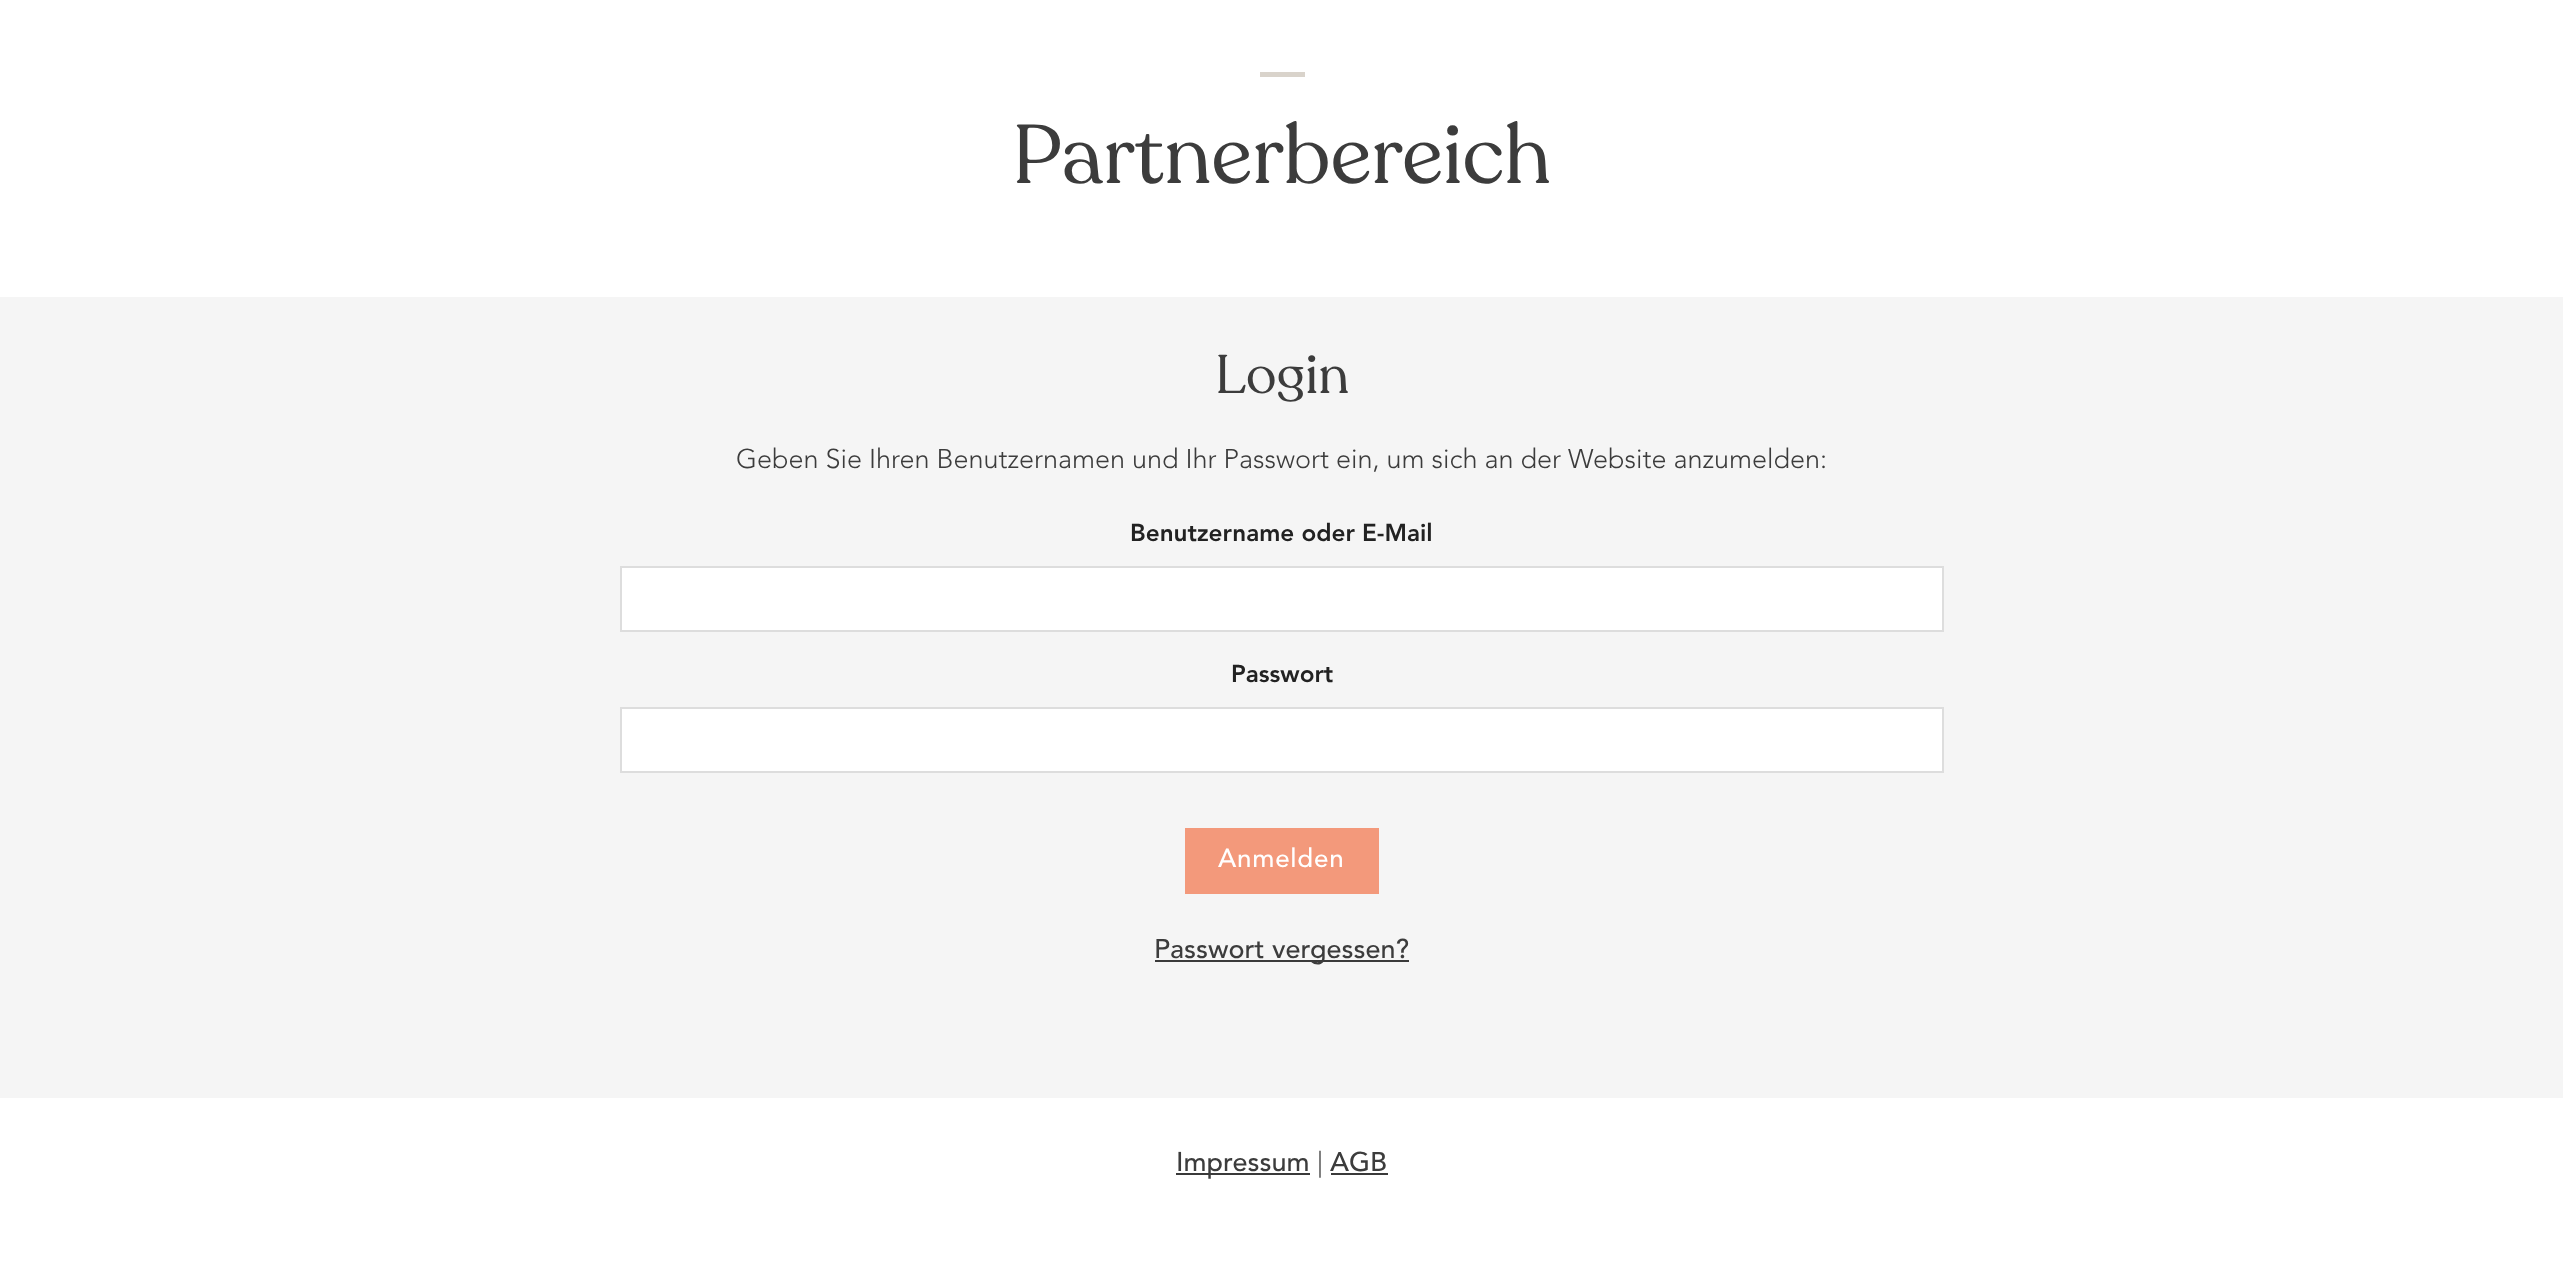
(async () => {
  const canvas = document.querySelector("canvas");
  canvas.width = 2563;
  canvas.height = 1271;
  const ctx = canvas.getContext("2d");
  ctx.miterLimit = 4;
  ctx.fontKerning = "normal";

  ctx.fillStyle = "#ffffff";
  ctx.fillRect(0, 0, 2563, 1271);
  ctx.fillStyle = "#d9d3cb";
  ctx.fillRect(1260, 72, 45, 5);
  ctx.fillStyle = "#f5f5f5";
  ctx.fillRect(0, 297, 2563, 801);
  ctx.fillStyle = "#ffffff";
  ctx.beginPath();
  ctx.rect(621, 567, 1322, 64);
  ctx.fill();
  ctx.strokeStyle = "#dddddd";
  ctx.lineWidth = 2;
  ctx.stroke();
  ctx.beginPath();
  ctx.rect(621, 708, 1322, 64);
  ctx.fill();
  ctx.stroke();
  for (const [x, y, w, h, color] of [
    [1185, 828, 194, 66, "#f3997b"],
    [1155, 960, 254, 2, "#3a3a3a"],
    [1176, 1173, 134, 2, "#3a3a3a"],
    [1331, 1173, 57, 2, "#3a3a3a"],
  ]) {
    ctx.fillStyle = color;
    ctx.fillRect(x, y, w, h);
  }
  ctx.font = "82.5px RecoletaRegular";
  ctx.fillStyle = "#3c3c3c";
  ctx.fillText("Partnerbereich", 1012, 183);
  ctx.font = "54px RecoletaRegular";
  ctx.fillText("Login", 1215, 393);
  ctx.font = "300 27px Avenir";
  ctx.fillText("Geben Sie Ihren Benutzernamen und Ihr Passwort ein, um sich an der Website anzumelden:", 736, 468);
  ctx.font = "900 24.25px Avenir";
  ctx.fillStyle = "#222222";
  ctx.fillText("Benutzername oder E-Mail", 1130, 541);
  ctx.fillText("Passwort", 1231, 682);
  ctx.letterSpacing = "0.75px";
  ctx.font = "500 26px Avenir";
  ctx.fillStyle = "#ffffff";
  ctx.fillText("Anmelden", 1218, 867);
  ctx.letterSpacing = "0px";
  ctx.font = "500 27px Avenir";
  ctx.fillStyle = "#3c3c3c";
  ctx.fillText("Passwort vergessen?", 1154, 958);
  ctx.fillText("Impressum", 1176, 1171);
  ctx.font = "300 27px Avenir";
  ctx.fillText("|", 1317, 1171);
  ctx.font = "500 27px Avenir";
  ctx.fillText("AGB", 1330, 1171);
})();
